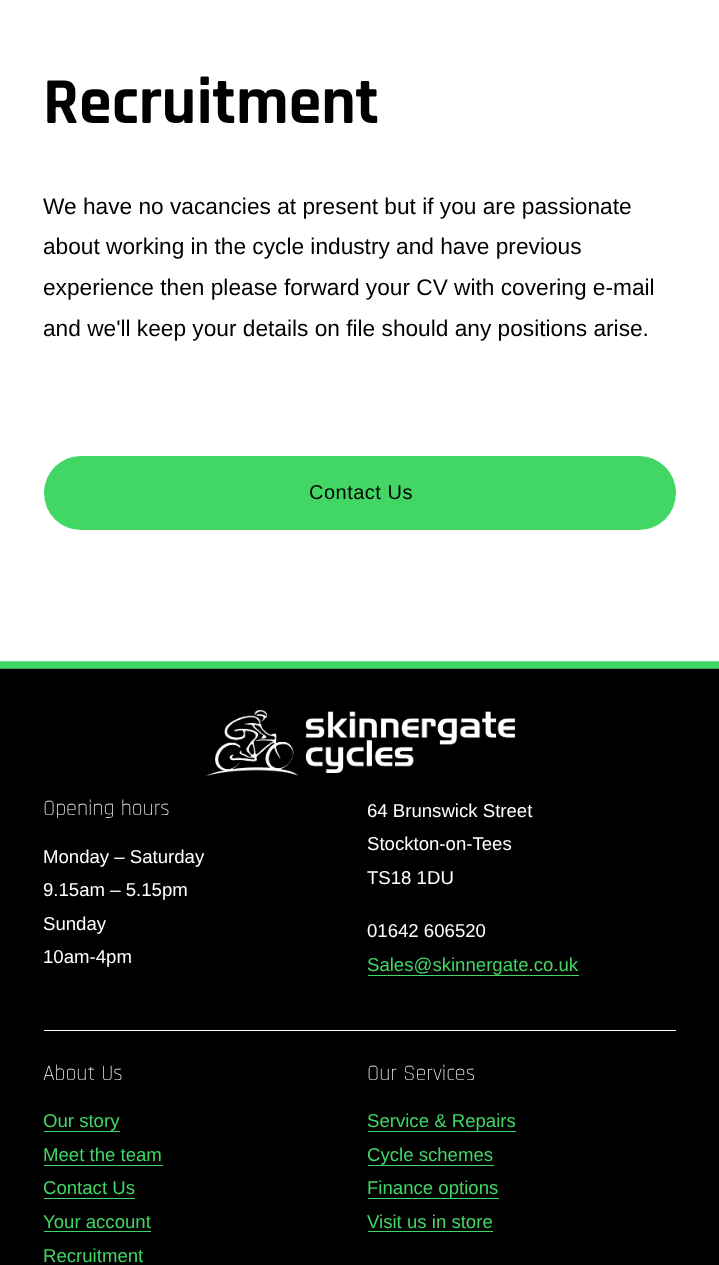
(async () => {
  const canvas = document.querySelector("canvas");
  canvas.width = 719;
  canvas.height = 1265;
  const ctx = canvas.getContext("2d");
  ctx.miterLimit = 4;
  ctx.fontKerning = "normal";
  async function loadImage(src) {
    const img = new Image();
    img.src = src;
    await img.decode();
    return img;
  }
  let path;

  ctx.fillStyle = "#ffffff";
  ctx.fillRect(0, 0, 719, 1265);
  ctx.fillStyle = "#42d665";
  ctx.beginPath();
  ctx.roundRect(44, 456, 632, 74, 37);
  ctx.fill();
  ctx.fillStyle = "#000000";
  ctx.fillRect(0, 668, 719, 597);
  path = new Path2D("M-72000 247.5V1082.5M0 665H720");
  ctx.strokeStyle = "#42d665";
  ctx.lineWidth = 7.5;
  ctx.lineCap = "square";
  ctx.stroke(path);
  ctx.drawImage(await loadImage("img/1.png"), 205, 710, 310, 67);
  for (const [x, y, w, h, color] of [
    [368, 975, 211, 1, "#42d665"],
    [44, 1030, 632, 1, "#ffffff"],
    [44, 1131, 76, 1, "#42d665"],
    [44, 1165, 119, 1, "#42d665"],
    [44, 1198, 91, 1, "#42d665"],
    [44, 1231, 107, 1, "#42d665"],
    [368, 1131, 148, 1, "#42d665"],
    [368, 1165, 126, 1, "#42d665"],
    [368, 1198, 131, 1, "#42d665"],
    [368, 1231, 125, 1, "#42d665"],
  ]) {
    ctx.fillStyle = color;
    ctx.fillRect(x, y, w, h);
  }
  ctx.font = "bold 66px Rajdhani";
  ctx.fillStyle = "#000000";
  ctx.fillText("Recruitment", 43, 123);
  ctx.font = "22.7px Liberation Sans";
  for (const [text, x, y] of [
    ["We have no vacancies at present but if you are passionate", 43, 214],
    ["about working in the cycle industry and have previous", 43, 254],
    ["experience then please forward your CV with covering e-mail", 43, 295],
    ["and we'll keep your details on file should any positions arise.", 43, 336],
  ]) {
    ctx.fillText(text, x, y);
  }
  ctx.letterSpacing = "0.5px";
  ctx.font = "20px Liberation Sans";
  ctx.fillText("Contact Us", 309, 499);
  ctx.letterSpacing = "0px";
  ctx.font = "300 22px Rajdhani";
  ctx.fillStyle = "#ffffff";
  ctx.fillText("Opening hours", 43, 815);
  ctx.font = "18.6px Liberation Sans";
  for (const [text, x, y] of [
    ["64 Brunswick Street", 367, 817],
    ["Stockton-on-Tees", 367, 850],
    ["TS18 1DU", 367, 884],
    ["01642 606520", 367, 937],
  ]) {
    ctx.fillText(text, x, y);
  }
  ctx.fillStyle = "#42d665";
  ctx.fillText("Sales@skinnergate.co.uk", 367, 971);
  ctx.fillStyle = "#ffffff";
  for (const [text, x, y] of [
    ["Monday – Saturday", 43, 863],
    ["9.15am – 5.15pm", 43, 896],
    ["Sunday", 43, 930],
    ["10am-4pm", 43, 963],
  ]) {
    ctx.fillText(text, x, y);
  }
  ctx.font = "300 22px Rajdhani";
  ctx.fillText("About Us", 43, 1080);
  ctx.fillText("Our Services", 367, 1080);
  ctx.font = "18.6px Liberation Sans";
  ctx.fillStyle = "#42d665";
  for (const [text, x, y] of [
    ["Our story", 43, 1127],
    ["Meet the team", 43, 1161],
    ["Contact Us", 43, 1194],
    ["Your account", 43, 1228],
    ["Recruitment", 43, 1262],
    ["Service & Repairs", 367, 1127],
    ["Cycle schemes", 367, 1161],
    ["Finance options", 367, 1194],
    ["Visit us in store", 367, 1228],
  ]) {
    ctx.fillText(text, x, y);
  }
})();
